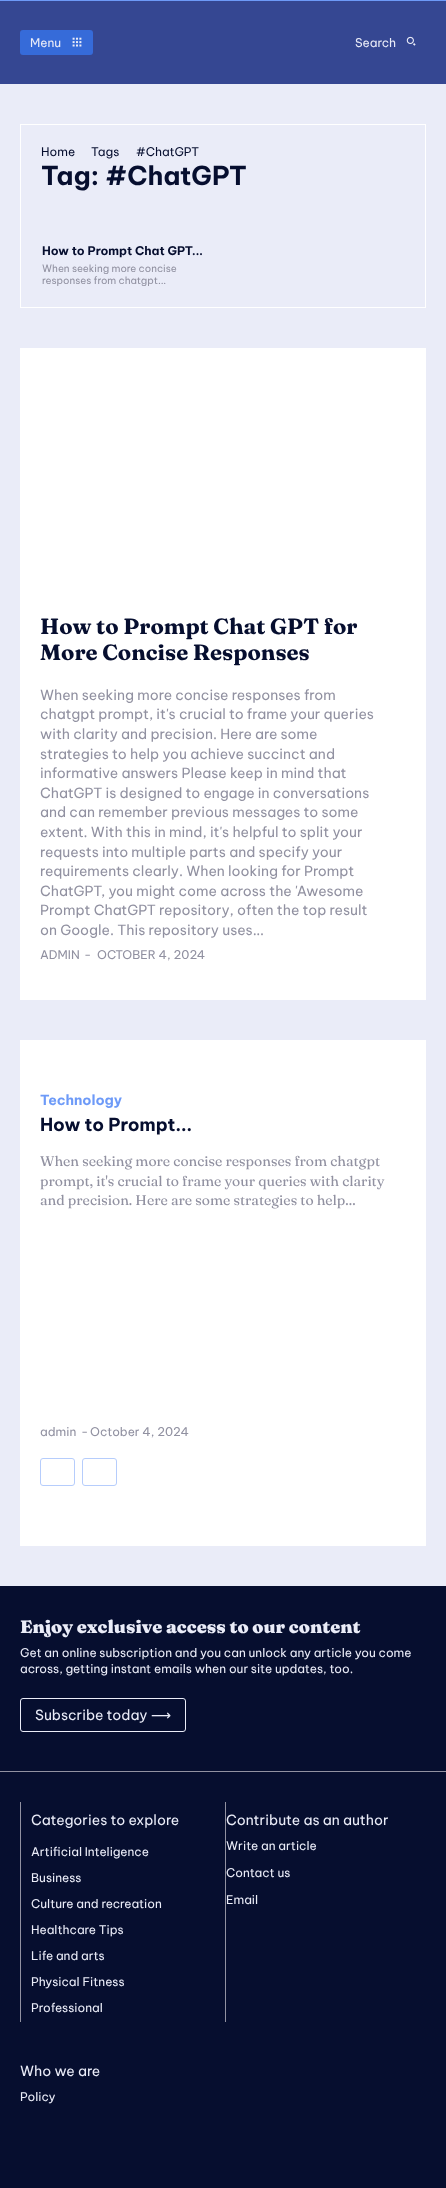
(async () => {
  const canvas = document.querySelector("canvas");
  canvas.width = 446;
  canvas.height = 2188;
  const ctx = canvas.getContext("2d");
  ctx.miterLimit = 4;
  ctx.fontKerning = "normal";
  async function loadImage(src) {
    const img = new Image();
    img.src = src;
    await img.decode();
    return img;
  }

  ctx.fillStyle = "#eaecf8";
  ctx.fillRect(0, 0, 446, 2188);
  ctx.fillStyle = "#6d9af8";
  ctx.fillRect(0, 0, 446, 1);
  ctx.fillStyle = "#354792";
  ctx.fillRect(0, 1, 446, 83);
  ctx.fillStyle = "#366bd9";
  ctx.beginPath();
  ctx.roundRect(20, 30, 73, 25, 3);
  ctx.fill();
  ctx.drawImage(await loadImage("img/1.png"), 72, 37, 10, 10);
  ctx.drawImage(await loadImage("img/2.png"), 406, 36, 10, 10);
  ctx.strokeStyle = "#ffffff";
  ctx.strokeRect(20.5, 124.5, 405, 183);
  ctx.fillStyle = "#ffffff";
  ctx.fillRect(20, 348, 406, 652);
  ctx.fillRect(20, 1040, 406, 506);
  ctx.beginPath();
  ctx.roundRect(40.5, 1458.5, 34, 27, 2.5);
  ctx.strokeStyle = "#b6cdfc";
  ctx.stroke();
  ctx.beginPath();
  ctx.roundRect(82.5, 1458.5, 34, 27, 2.5);
  ctx.stroke();
  ctx.fillStyle = "#060e2f";
  ctx.fillRect(0, 1586, 446, 185);
  ctx.fillStyle = "#9191a1";
  ctx.fillRect(0, 1771, 446, 1);
  ctx.beginPath();
  ctx.roundRect(20.5, 1698.5, 165, 33, 2.5);
  ctx.strokeStyle = "#eaecf8";
  ctx.stroke();
  for (const [x, y, w, h, color] of [
    [0, 1772, 446, 416, "#060e2f"],
    [225, 1802, 1, 220, "#9191a1"],
    [20, 1802, 1, 220, "#9191a1"],
  ]) {
    ctx.fillStyle = color;
    ctx.fillRect(x, y, w, h);
  }
  ctx.font = "12px Be Vietnam Pro";
  ctx.fillStyle = "#eaecf8";
  ctx.fillText("Menu", 30, 47);
  ctx.fillText("Search", 355, 47);
  ctx.fillStyle = "#060e2f";
  for (const [text, x, y] of [
    ["Home", 41, 156],
    ["Tags", 91, 156],
    ["#ChatGPT", 136, 156],
  ]) {
    ctx.fillText(text, x, y);
  }
  ctx.font = "bold 26px Be Vietnam Pro";
  ctx.fillText("Tag: #ChatGPT", 41, 185);
  ctx.font = "bold 12px Be Vietnam Pro";
  ctx.fillText("How to Prompt Chat GPT...", 42, 255);
  ctx.font = "10px Be Vietnam Pro";
  ctx.fillStyle = "#9191a1";
  ctx.fillText("When seeking more concise", 42, 272);
  ctx.fillText("responses from chatgpt...", 42, 284);
  ctx.font = "bold 22px Fraunces";
  ctx.fillStyle = "#060e2f";
  ctx.fillText("How to Prompt Chat GPT for", 40, 634);
  ctx.fillText("More Concise Responses", 40, 660);
  ctx.font = "14px Be Vietnam Pro";
  ctx.fillStyle = "#9191a1";
  for (const [text, x, y] of [
    ["When seeking more concise responses from", 40, 700],
    ["chatgpt prompt, it's crucial to frame your queries", 40, 719],
    ["with clarity and precision. Here are some", 40, 739],
    ["strategies to help you achieve succinct and", 40, 759],
    ["informative answers Please keep in mind that", 40, 778],
    ["ChatGPT is designed to engage in conversations", 40, 798],
    ["and can remember previous messages to some", 40, 817],
    ["extent. With this in mind, it's helpful to split your", 40, 837],
    ["requests into multiple parts and specify your", 40, 857],
    ["requirements clearly. When looking for Prompt", 40, 876],
    ["ChatGPT, you might come across the 'Awesome", 40, 896],
    ["Prompt ChatGPT repository, often the top result", 40, 915],
    ["on Google. This repository uses...", 40, 935],
  ]) {
    ctx.fillText(text, x, y);
  }
  ctx.font = "12px Be Vietnam Pro";
  for (const [text, x, y] of [
    ["ADMIN", 40, 959],
    ["-", 84, 959],
    ["OCTOBER 4, 2024", 97, 959],
  ]) {
    ctx.fillText(text, x, y);
  }
  ctx.font = "bold 14px Be Vietnam Pro";
  ctx.fillStyle = "#6d9af8";
  ctx.fillText("Technology", 40, 1105);
  ctx.font = "bold 18px Be Vietnam Pro";
  ctx.fillStyle = "#060e2f";
  ctx.fillText("How to Prompt...", 40, 1131);
  ctx.font = "14px Fraunces";
  ctx.fillStyle = "#9191a1";
  for (const [text, x, y] of [
    ["When seeking more concise responses from chatgpt", 40, 1166],
    ["prompt, it's crucial to frame your queries with clarity", 40, 1186],
    ["and precision. Here are some strategies to help...", 40, 1205],
  ]) {
    ctx.fillText(text, x, y);
  }
  ctx.font = "12px Be Vietnam Pro";
  for (const [text, x, y] of [
    ["admin", 40, 1436],
    ["-", 81, 1436],
    ["October 4, 2024", 90, 1436],
  ]) {
    ctx.fillText(text, x, y);
  }
  ctx.font = "900 18px Fraunces";
  ctx.fillStyle = "#eaecf8";
  ctx.fillText("Enjoy exclusive access to our content", 20, 1633);
  ctx.font = "12px Be Vietnam Pro";
  ctx.fillText("Get an online subscription and you can unlock any article you come", 20, 1657);
  ctx.fillText("across, getting instant emails when our site updates, too.", 20, 1673);
  ctx.font = "14px Be Vietnam Pro";
  ctx.fillText("Subscribe today", 35, 1720);
  ctx.font = "14px DejaVu Sans";
  ctx.fillText("⟶", 151, 1720);
  ctx.font = "14px Be Vietnam Pro";
  ctx.fillText("Categories to explore", 31, 1825);
  ctx.font = "12px Be Vietnam Pro";
  for (const [text, x, y] of [
    ["Artificial Inteligence", 31, 1856],
    ["Business", 31, 1882],
    ["Culture and recreation", 31, 1908],
    ["Healthcare Tips", 31, 1934],
    ["Life and arts", 31, 1960],
    ["Physical Fitness", 31, 1986],
    ["Professional", 31, 2012],
  ]) {
    ctx.fillText(text, x, y);
  }
  ctx.font = "14px Be Vietnam Pro";
  ctx.fillText("Contribute as an author", 226, 1825);
  ctx.font = "12px Be Vietnam Pro";
  for (const [text, x, y] of [
    ["Write an article", 226, 1850],
    ["Contact us", 226, 1877],
    ["Email", 226, 1904],
  ]) {
    ctx.fillText(text, x, y);
  }
  ctx.font = "14px Be Vietnam Pro";
  ctx.fillText("Who we are", 20, 2076);
  ctx.font = "12px Be Vietnam Pro";
  ctx.fillText("Policy", 20, 2101);
})();
